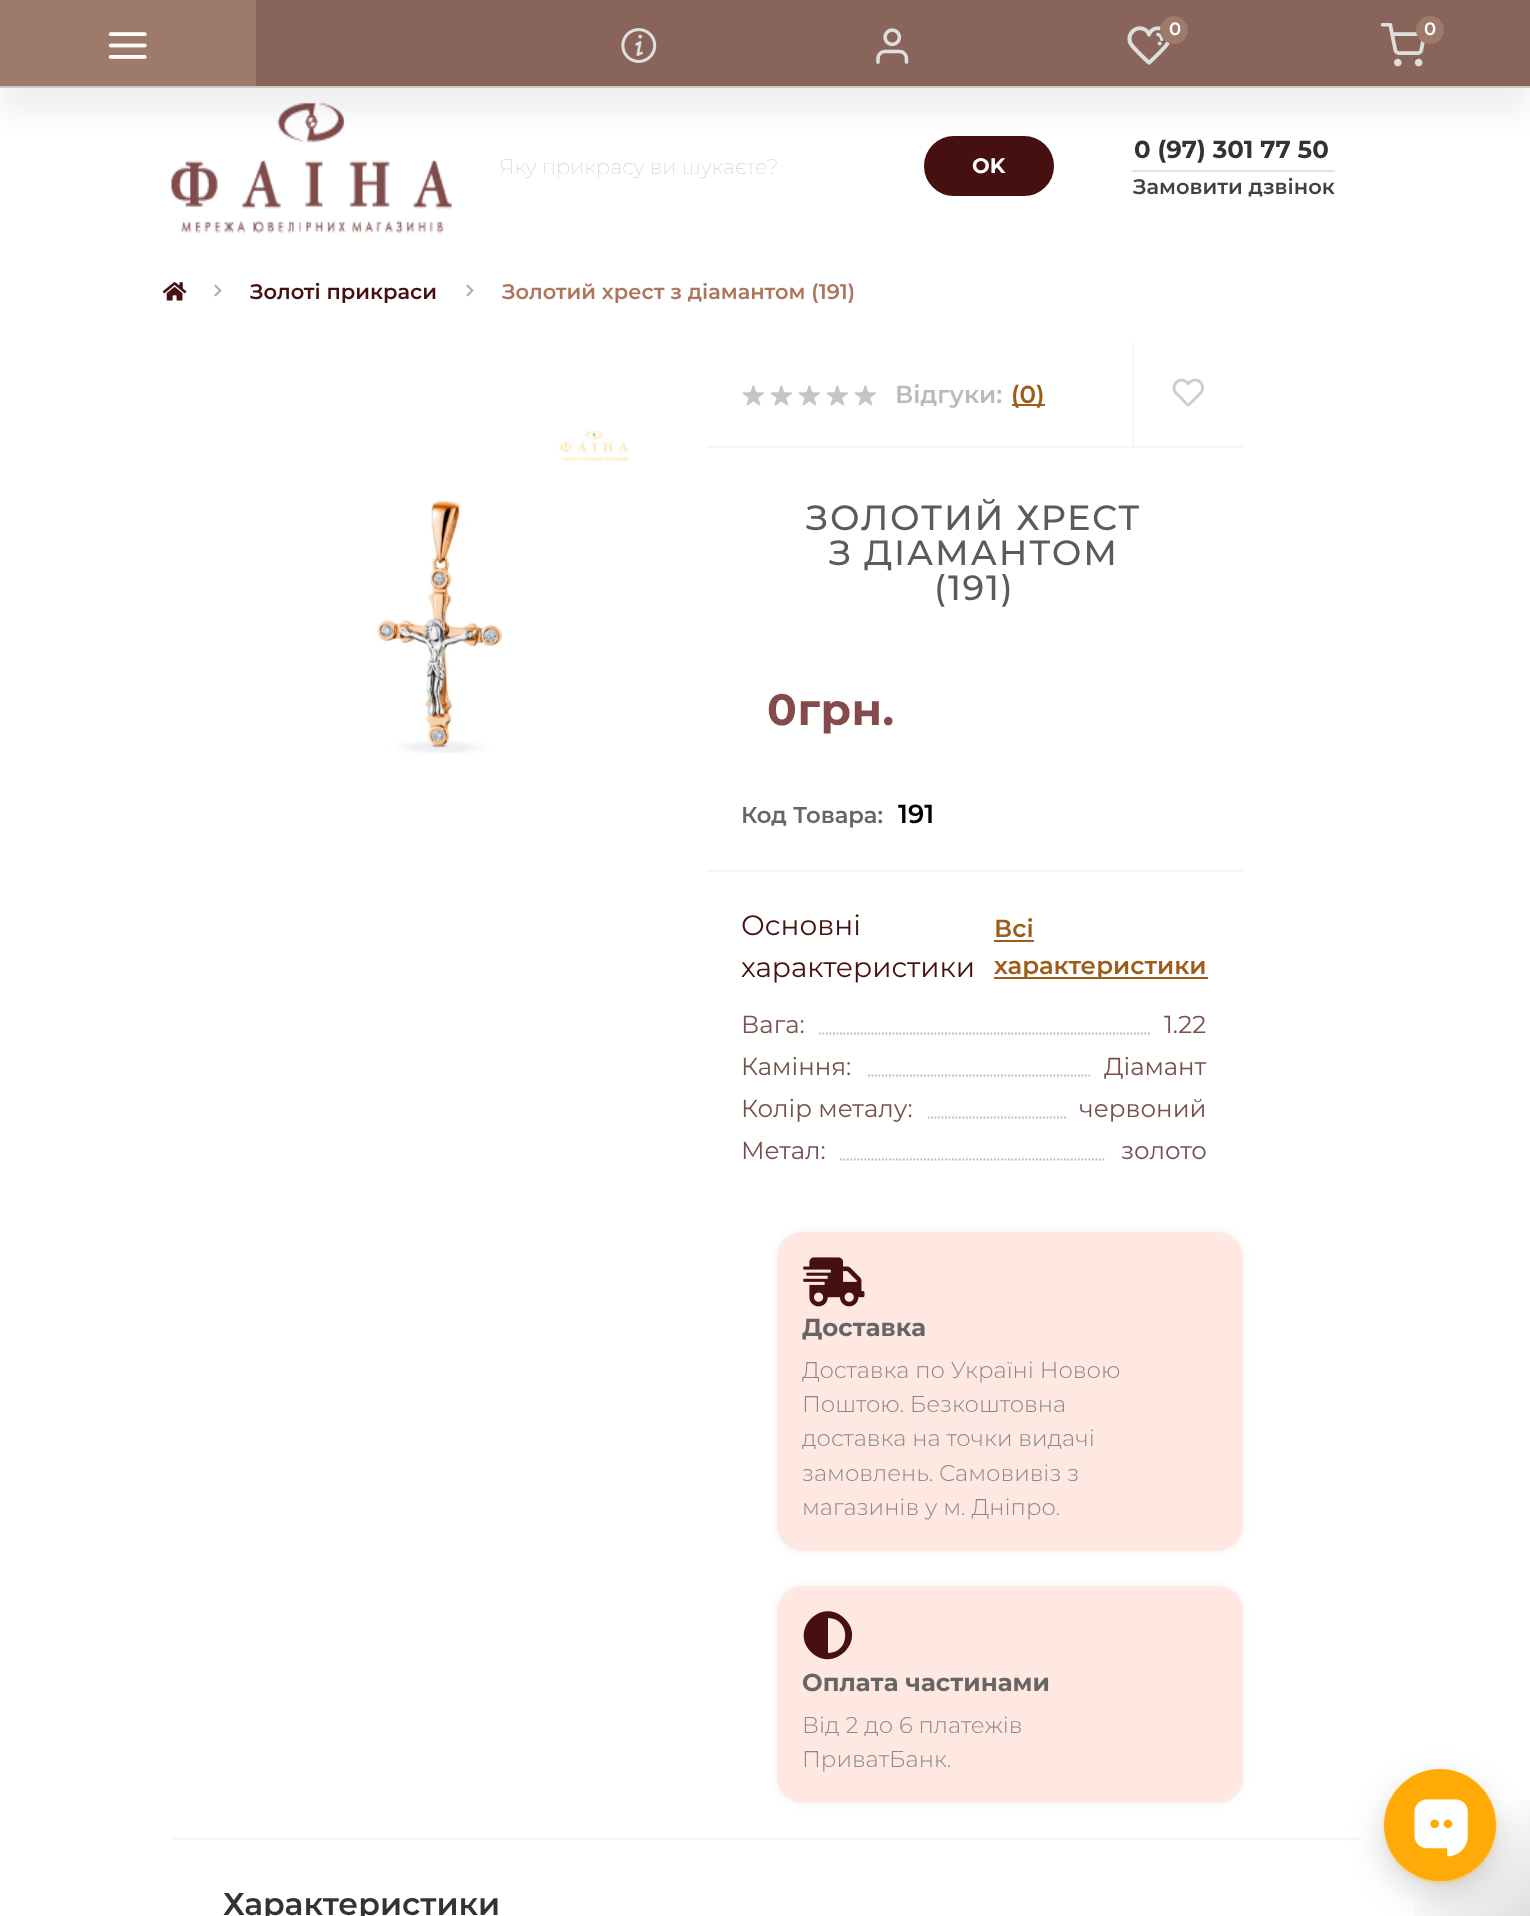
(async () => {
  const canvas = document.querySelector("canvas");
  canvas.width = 1530;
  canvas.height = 1916;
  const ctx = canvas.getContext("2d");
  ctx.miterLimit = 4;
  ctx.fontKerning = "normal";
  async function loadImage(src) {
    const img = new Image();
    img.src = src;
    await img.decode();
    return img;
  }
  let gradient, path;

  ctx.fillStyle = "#ffffff";
  ctx.fillRect(0, 0, 1530, 1916);
  ctx.drawImage(await loadImage("img/6.png"), 171, 102, 281, 132);
  ctx.fillStyle = "#461010";
  ctx.beginPath();
  ctx.roundRect(921.5, 133.5, 135, 65, 32.5);
  ctx.fill();
  ctx.strokeStyle = "#ffffff";
  ctx.lineWidth = 5;
  ctx.stroke();
  ctx.fillStyle = "rgba(0, 0, 0, 0.06)";
  ctx.filter = "blur(13px)";
  ctx.beginPath();
  ctx.rect(0, 26, 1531, 88);
  ctx.fill();
  ctx.filter = "none";
  for (const [x, y, w, h, color] of [
    [256, 0, 1274, 86, "#88645a"],
    [0, 86, 1530, 2, "#cac9c9"],
    [0, 0, 256, 86, "#9e7a6a"],
  ]) {
    ctx.fillStyle = color;
    ctx.fillRect(x, y, w, h);
  }
  ctx.drawImage(await loadImage("img/1.png"), 108, 32, 39, 27);
  ctx.drawImage(await loadImage("img/2.png"), 621, 28, 36, 35);
  ctx.drawImage(await loadImage("img/3.png"), 876, 28, 33, 36);
  ctx.drawImage(await loadImage("img/4.png"), 1127, 26, 43, 39);
  ctx.beginPath();
  ctx.arc(1174, 30, 14, 0, Math.PI * 2);
  ctx.fill();
  ctx.drawImage(await loadImage("img/5.png"), 1381, 23, 44, 44);
  ctx.beginPath();
  ctx.arc(1430, 30, 14, 0, Math.PI * 2);
  ctx.fill();
  ctx.fillStyle = "#e2e2e2";
  ctx.fillRect(1132, 170, 203, 2);
  ctx.drawImage(await loadImage("img/7.png"), 162, 282, 25, 19);
  ctx.drawImage(await loadImage("img/8.png"), 214, 284, 8, 13);
  ctx.drawImage(await loadImage("img/8.png"), 466, 284, 8, 13);
  ctx.fillStyle = "#f6f6f6";
  ctx.fillRect(172, 1838, 1190, 2);
  ctx.drawImage(await loadImage("img/9.png"), 377, 430, 252, 324);
  ctx.fillRect(707, 446, 536, 2);
  ctx.drawImage(await loadImage("img/10.png"), 742, 385, 22, 21);
  ctx.drawImage(await loadImage("img/10.png"), 770, 385, 22, 21);
  ctx.drawImage(await loadImage("img/10.png"), 798, 385, 22, 21);
  ctx.drawImage(await loadImage("img/10.png"), 826, 385, 22, 21);
  ctx.drawImage(await loadImage("img/10.png"), 854, 385, 22, 21);
  ctx.fillStyle = "#9d5d19";
  ctx.fillRect(1012, 404, 33, 2);
  ctx.fillStyle = "#f6f6f6";
  ctx.fillRect(1132, 343, 2, 103);
  ctx.drawImage(await loadImage("img/11.png"), 1172, 378, 32, 29);
  for (const [x, y, w, h, color] of [
    [707, 870, 536, 2, "#f6f6f6"],
    [994, 940, 40, 2, "#9d5d19"],
    [994, 977, 214, 2, "#9d5d19"],
  ]) {
    ctx.fillStyle = color;
    ctx.fillRect(x, y, w, h);
  }
  path = new Path2D("M742 1033.5H1207.5");
  ctx.strokeStyle = "#bababa";
  ctx.lineWidth = 1.8;
  ctx.setLineDash([1.75, 1.75]);
  ctx.stroke(path);
  ctx.fillStyle = "#ffffff";
  ctx.fillRect(742, 1032, 76, 3);
  ctx.fillRect(1151, 1032, 55, 3);
  path = new Path2D("M742 1075.5H1207.5");
  ctx.stroke(path);
  ctx.fillRect(742, 1074, 124, 3);
  ctx.fillRect(1090, 1074, 116, 3);
  path = new Path2D("M742 1117.5H1207.5");
  ctx.stroke(path);
  ctx.fillRect(742, 1116, 186, 3);
  ctx.fillRect(1067, 1116, 139, 3);
  path = new Path2D("M742 1159.5H1207.5");
  ctx.stroke(path);
  ctx.fillRect(742, 1158, 97, 3);
  ctx.fillRect(1106, 1158, 100, 3);
  ctx.fillStyle = "#f0f0f0";
  ctx.filter = "blur(4.5px)";
  ctx.beginPath();
  ctx.roundRect(777, 1232, 466, 319, 26);
  ctx.fill();
  ctx.filter = "none";
  ctx.fillStyle = "#ffe8e1";
  ctx.beginPath();
  ctx.roundRect(777, 1232, 466, 319, 26);
  ctx.fill();
  ctx.drawImage(await loadImage("img/12.png"), 803, 1257, 62, 50);
  ctx.fillStyle = "#f0f0f0";
  ctx.filter = "blur(4.5px)";
  ctx.beginPath();
  ctx.roundRect(777, 1586, 466, 217, 26);
  ctx.fill();
  ctx.filter = "none";
  ctx.fillStyle = "#ffe8e1";
  ctx.beginPath();
  ctx.roundRect(777, 1586, 466, 217, 26);
  ctx.fill();
  ctx.fillStyle = "#461010";
  path = new Path2D("M811 1652C789 1630 822 1596 845 1619C867 1641 833 1674 811 1652ZM828 1653C851 1653 851 1618 828 1618Z");
  ctx.fill(path);
  gradient = ctx.createLinearGradient(1356, 1741, 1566, 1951);
  gradient.addColorStop(0.5, "rgba(14, 14, 41, 0)");
  gradient.addColorStop(1, "rgba(14, 14, 41, 0.2)");
  ctx.fillStyle = gradient;
  ctx.fillRect(1414, 1800, 116, 116);
  ctx.fillStyle = "rgba(0, 0, 0, 0.16)";
  ctx.filter = "blur(17.5px)";
  ctx.beginPath();
  ctx.roundRect(1384, 1783, 112, 112, 56);
  ctx.fill();
  ctx.filter = "none";
  ctx.fillStyle = "#ffaa06";
  ctx.filter = "blur(3.5px)";
  ctx.beginPath();
  ctx.roundRect(1388, 1775, 105, 105, 52.5);
  ctx.fill();
  ctx.filter = "none";
  ctx.beginPath();
  ctx.arc(1440, 1825, 56, 0, Math.PI * 2);
  ctx.fill();
  ctx.drawImage(await loadImage("img/13.png"), 1414, 1799, 54, 58);
  ctx.font = "600 18px Montserrat";
  ctx.fillStyle = "#ffffff";
  ctx.fillText("0", 1169, 35);
  ctx.fillText("0", 1424, 35);
  ctx.font = "100 21px Montserrat";
  ctx.fillStyle = "#c2c2c2";
  ctx.fillText("Яку прикрасу ви шукаєте?", 499, 174);
  ctx.font = "bold 21px Montserrat";
  ctx.fillStyle = "#ffffff";
  ctx.fillText("OK", 972, 173);
  ctx.font = "bold 24.5px Montserrat";
  ctx.fillStyle = "#333333";
  ctx.fillText("0 (97) 301 77 50", 1134, 158);
  ctx.font = "600 21px Montserrat";
  ctx.fillStyle = "#40413f";
  ctx.fillText("Замовити дзвінок", 1133, 194);
  ctx.fillStyle = "#461010";
  ctx.fillText("Золоті прикраси", 250, 299);
  ctx.fillStyle = "#ad755b";
  ctx.fillText("Золотий хрест з діамантом (191)", 502, 299);
  ctx.font = "600 24.5px Montserrat";
  ctx.fillStyle = "#bababa";
  ctx.fillText("Відгуки:", 895, 403);
  ctx.fillStyle = "#9d5d19";
  ctx.fillText("(0)", 1011, 403);
  ctx.letterSpacing = "1.75px";
  ctx.font = "500 35px Montserrat";
  ctx.fillStyle = "#5e5a5a";
  for (const [text, x, y] of [
    ["ЗОЛОТИЙ ХРЕСТ", 806, 530],
    ["З ДІАМАНТОМ", 829, 565],
    ["(191)", 934, 600],
  ]) {
    ctx.fillText(text, x, y);
  }
  ctx.letterSpacing = "0.5px";
  ctx.font = "bold 44px Montserrat";
  ctx.fillStyle = "#854a4a";
  ctx.fillText("0грн.", 767, 725);
  ctx.letterSpacing = "0px";
  ctx.font = "600 22.75px Montserrat";
  ctx.fillStyle = "#666666";
  ctx.fillText("Код Товара:", 741, 823);
  ctx.font = "600 26px Montserrat";
  ctx.fillStyle = "#000000";
  ctx.fillText("191", 898, 823);
  ctx.font = "28px Montserrat";
  ctx.fillStyle = "#461010";
  ctx.fillText("Основні", 741, 935);
  ctx.fillText("характеристики", 741, 977);
  ctx.font = "600 24.5px Montserrat";
  ctx.fillStyle = "#9d5d19";
  ctx.fillText("Всі", 994, 937);
  ctx.fillText("характеристики", 994, 974);
  ctx.font = "24.5px Montserrat";
  ctx.fillStyle = "#77504c";
  for (const [text, x, y] of [
    ["Вага:", 741, 1033],
    ["1.22", 1164, 1033],
    ["Каміння:", 741, 1075],
    ["Діамант", 1104, 1075],
    ["Колір металу:", 741, 1117],
    ["червоний", 1079, 1117],
    ["Метал:", 741, 1159],
    ["золото", 1121, 1159],
  ]) {
    ctx.fillText(text, x, y);
  }
  ctx.font = "bold 24.5px Montserrat";
  ctx.fillStyle = "#666666";
  ctx.fillText("Доставка", 802, 1336);
  ctx.font = "300 22.75px Montserrat";
  ctx.fillStyle = "#898989";
  for (const [text, x, y] of [
    ["Доставка по Україні Новою", 802, 1378],
    ["Поштою. Безкоштовна", 802, 1412],
    ["доставка на точки видачі", 802, 1446],
    ["замовлень. Самовивіз з", 802, 1481],
    ["магазинів у м. Дніпро.", 802, 1515],
  ]) {
    ctx.fillText(text, x, y);
  }
  ctx.font = "bold 24.5px Montserrat";
  ctx.fillStyle = "#666666";
  ctx.fillText("Оплата частинами", 802, 1691);
  ctx.font = "300 22.75px Montserrat";
  ctx.fillStyle = "#898989";
  ctx.fillText("Від 2 до 6 платежів", 802, 1733);
  ctx.fillText("ПриватБанк.", 802, 1767);
  ctx.font = "600 31.5px Montserrat";
  ctx.fillStyle = "#333333";
  ctx.fillText("Характеристики", 223, 1915);
})();
